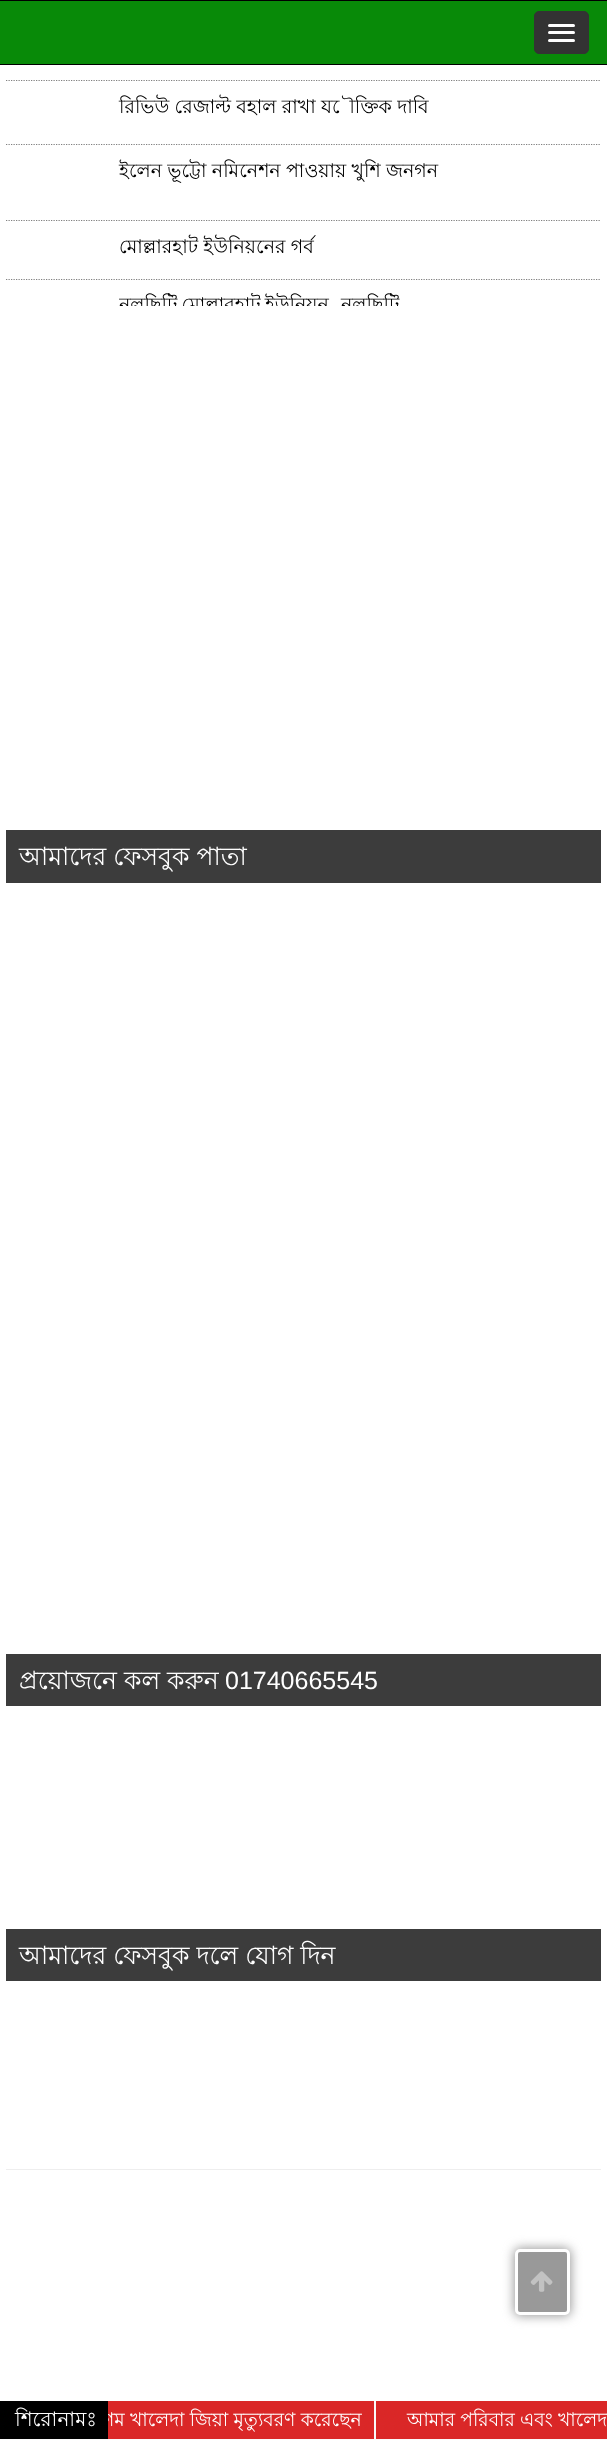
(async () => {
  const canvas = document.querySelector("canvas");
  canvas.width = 607;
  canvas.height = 2440;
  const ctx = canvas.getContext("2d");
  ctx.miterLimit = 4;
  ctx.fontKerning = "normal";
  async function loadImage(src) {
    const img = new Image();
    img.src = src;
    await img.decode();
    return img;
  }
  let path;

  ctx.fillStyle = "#ffffff";
  ctx.fillRect(0, 0, 607, 2440);
  for (const [x, y, w, h, color] of [
    [0, 1, 607, 63, "#088a08"],
    [0, 0, 607, 1, "#000000"],
    [0, 64, 607, 1, "#000000"],
  ]) {
    ctx.fillStyle = color;
    ctx.fillRect(x, y, w, h);
  }
  ctx.fillStyle = "#333333";
  ctx.beginPath();
  ctx.roundRect(534.5, 11.5, 54, 42, 4.5);
  ctx.fill();
  ctx.strokeStyle = "#333333";
  ctx.stroke();
  ctx.fillStyle = "#ffffff";
  ctx.beginPath();
  ctx.roundRect(548, 24, 27, 3, 1.5);
  ctx.fill();
  ctx.beginPath();
  ctx.roundRect(548, 31, 27, 3, 1.5);
  ctx.fill();
  ctx.beginPath();
  ctx.roundRect(548, 39, 27, 3, 1.5);
  ctx.fill();
  path = new Path2D("M6 80.5H601");
  ctx.strokeStyle = "#808080";
  ctx.lineWidth = 1.2;
  ctx.setLineDash([1.25, 1.25]);
  ctx.stroke(path);
  path = new Path2D("M6 144.5H601");
  ctx.stroke(path);
  path = new Path2D("M6 220.5H601");
  ctx.stroke(path);
  path = new Path2D("M6 279.5H601");
  ctx.stroke(path);
  for (const [x, y, w, h, color] of [
    [6, 830, 595, 53, "#3c3c3c"],
    [6, 1654, 595, 52, "#3c3c3c"],
    [6, 1929, 595, 52, "#3c3c3c"],
    [6, 2169, 595, 1, "#eeeeee"],
  ]) {
    ctx.fillStyle = color;
    ctx.fillRect(x, y, w, h);
  }
  ctx.fillStyle = "#999999";
  ctx.filter = "blur(5.5px)";
  ctx.beginPath();
  ctx.roundRect(514, 2248, 57, 68, 6);
  ctx.fill();
  ctx.filter = "none";
  ctx.beginPath();
  ctx.roundRect(516.5, 2250.5, 52, 63, 3.5);
  ctx.fill();
  ctx.strokeStyle = "#ffffff";
  ctx.lineWidth = 3;
  ctx.setLineDash([]);
  ctx.stroke();
  ctx.drawImage(await loadImage("img/1.png"), 530, 2271, 23, 21);
  for (const [x, y, w, h, color] of [
    [0, 2401, 607, 39, "#fafafa"],
    [0, 2401, 108, 38, "#000000"],
    [108, 2401, 266, 38, "#da2727"],
    [376, 2401, 231, 38, "#da2727"],
  ]) {
    ctx.fillStyle = color;
    ctx.fillRect(x, y, w, h);
  }
  ctx.font = "19px Lohit Bengali";
  ctx.fillStyle = "#000000";
  for (const [text, x, y] of [
    ["রিভিউ রেজাল্ট বহাল রাখা যৌক্তিক দাবি", 119, 113],
    ["ইলেন ভূট্টো নমিনেশন পাওয়ায় খুশি জনগন", 119, 177],
    ["মোল্লারহাট ইউনিয়নের গর্ব", 119, 253],
  ]) {
    ctx.fillText(text, x, y);
  }
  ctx.save();
  ctx.beginPath();
  ctx.rect(119, 293, 482, 13);
  ctx.clip();
  ctx.wordSpacing = "-1px";
  ctx.fillText("নলছিটি মোল্লারহাট ইউনিয়ন, নলছিটি", 119, 311);
  ctx.restore();
  ctx.font = "25px Lohit Bengali";
  ctx.fillStyle = "#ffffff";
  ctx.fillText("আমাদের ফেসবুক পাতা", 19, 865);
  ctx.fillText("প্রয়োজনে কল করুন", 19, 1689);
  ctx.font = "25px Liberation Sans";
  ctx.fillText("01740665545", 225, 1689);
  ctx.font = "25px Lohit Bengali";
  ctx.fillText("আমাদের ফেসবুক দলে যোগ দিন", 19, 1964);
  ctx.font = "20px Lohit Bengali";
  ctx.fillText("শিরোনামঃ", 15, 2426);
  ctx.save();
  ctx.beginPath();
  ctx.rect(108, 2401, 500, 38);
  ctx.clip();
  ctx.font = "18.75px Lohit Bengali";
  ctx.fillText("গম খালেদা জিয়া মৃত্যুবরণ করেছেন", 102, 2426);
  ctx.restore();
  ctx.font = "18.75px Lohit Bengali";
  ctx.fillText("আমার পরিবার এবং খালেদা", 407, 2426);
})();
